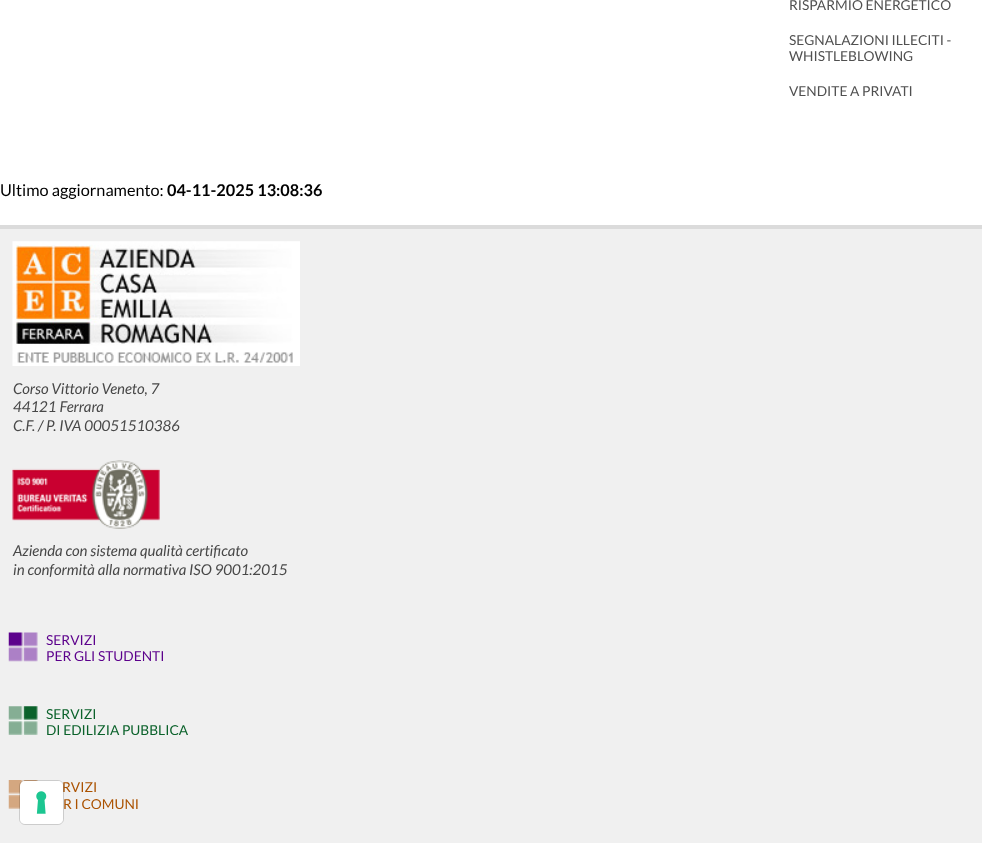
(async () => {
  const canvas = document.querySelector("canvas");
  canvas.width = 982;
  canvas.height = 843;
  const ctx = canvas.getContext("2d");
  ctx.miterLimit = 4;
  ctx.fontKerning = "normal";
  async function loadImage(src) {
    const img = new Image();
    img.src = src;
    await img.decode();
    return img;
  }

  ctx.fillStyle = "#ffffff";
  ctx.fillRect(0, 0, 982, 843);
  ctx.fillStyle = "#dbdbdb";
  ctx.fillRect(0, 225, 982, 4);
  ctx.fillStyle = "#f0f0f0";
  ctx.fillRect(0, 229, 982, 614);
  ctx.drawImage(await loadImage("img/1.png"), 12, 241, 288, 125);
  ctx.drawImage(await loadImage("img/2.png"), 12, 460, 148, 69);
  ctx.drawImage(await loadImage("img/3.png"), 8, 632, 30, 30);
  ctx.drawImage(await loadImage("img/4.png"), 8, 706, 30, 29);
  ctx.drawImage(await loadImage("img/5.png"), 8, 780, 30, 29);
  ctx.font = "13.75px Lato";
  ctx.fillStyle = "#505050";
  for (const [text, x, y] of [
    ["RISPARMIO ENERGETICO", 789, 10],
    ["SEGNALAZIONI ILLECITI -", 789, 45],
    ["WHISTLEBLOWING", 789, 61],
    ["VENDITE A PRIVATI", 789, 96],
  ]) {
    ctx.fillText(text, x, y);
  }
  ctx.font = "16.25px Lato";
  ctx.fillStyle = "#000000";
  ctx.fillText("Ultimo aggiornamento:", 0, 196);
  ctx.font = "bold 16.25px Lato";
  ctx.fillText("04-11-2025 13:08:36", 167, 196);
  ctx.font = "italic 15px Lato";
  ctx.fillStyle = "#484848";
  for (const [text, x, y] of [
    ["Corso Vittorio Veneto, 7", 13, 394],
    ["44121 Ferrara", 13, 412],
    ["C.F. / P. IVA 00051510386", 13, 431],
    ["Azienda con sistema qualità certificato", 13, 556],
    ["in conformità alla normativa ISO 9001:2015", 13, 575],
  ]) {
    ctx.fillText(text, x, y);
  }
  ctx.font = "13.75px Lato";
  ctx.fillStyle = "#5c018c";
  ctx.fillText("SERVIZI", 46, 645);
  ctx.fillText("PER GLI STUDENTI", 46, 661);
  ctx.fillStyle = "#0b622b";
  ctx.fillText("SERVIZI", 46, 719);
  ctx.fillText("DI EDILIZIA PUBBLICA", 46, 735);
  ctx.fillStyle = "#ab5201";
  ctx.fillText("RVIZI", 62, 792);
  ctx.fillText("R I COMUNI", 63, 809);
  ctx.beginPath();
  ctx.roundRect(19.5, 780.5, 44, 44, 5.5);
  ctx.strokeStyle = "rgba(0, 0, 0, 0.15)";
  ctx.stroke();
  ctx.fillStyle = "#ffffff";
  ctx.beginPath();
  ctx.roundRect(20, 781, 43, 43, 5);
  ctx.fill();
  ctx.drawImage(await loadImage("img/6.png"), 36, 791, 11, 23);
})();
